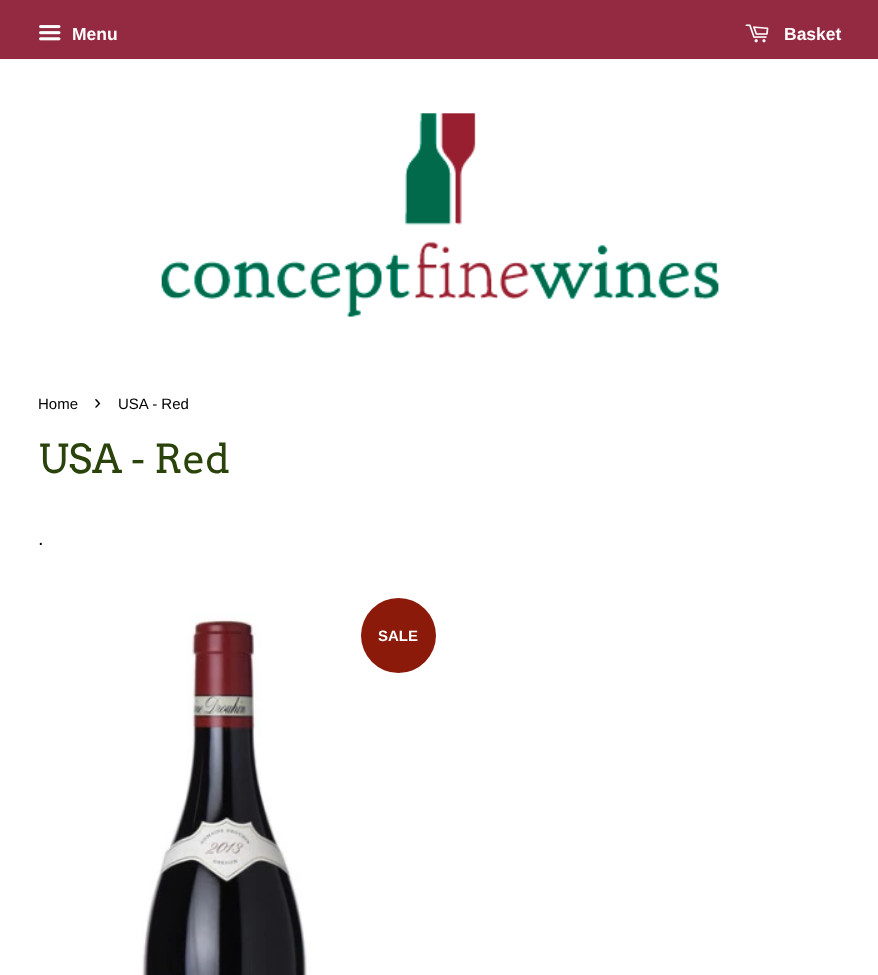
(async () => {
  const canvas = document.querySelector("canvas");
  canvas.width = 878;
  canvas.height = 975;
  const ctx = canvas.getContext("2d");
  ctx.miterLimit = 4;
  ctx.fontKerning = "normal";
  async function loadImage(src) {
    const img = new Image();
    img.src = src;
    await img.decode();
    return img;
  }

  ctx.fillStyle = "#ffffff";
  ctx.fillRect(0, 0, 878, 975);
  ctx.fillStyle = "#932a42";
  ctx.fillRect(0, 0, 878, 59);
  ctx.drawImage(await loadImage("img/1.png"), 39, 25, 22, 16);
  ctx.drawImage(await loadImage("img/2.png"), 745, 24, 24, 19);
  ctx.drawImage(await loadImage("img/3.png"), 161, 113, 558, 204);
  ctx.drawImage(await loadImage("img/4.png"), 141, 613, 170, 362);
  ctx.fillStyle = "#8b1a0a";
  ctx.beginPath();
  ctx.arc(398.5, 635.5, 37.5, 0, Math.PI * 2);
  ctx.fill();
  ctx.font = "bold 17.5px Liberation Sans";
  ctx.fillStyle = "#fdfdfd";
  ctx.fillText("Menu", 72, 40);
  ctx.fillText("Basket", 784, 40);
  ctx.font = "15px Liberation Sans";
  ctx.fillStyle = "#000000";
  ctx.fillText("Home", 38, 409);
  ctx.font = "21px Liberation Sans";
  ctx.fillText("›", 94, 409);
  ctx.font = "15px Liberation Sans";
  ctx.fillText("USA - Red", 118, 409);
  ctx.font = "40px Arvo";
  ctx.fillStyle = "#2a430a";
  ctx.fillText("USA - Red", 38, 473);
  ctx.font = "20px Liberation Sans";
  ctx.fillStyle = "#000000";
  ctx.fillText(".", 38, 545);
  ctx.font = "bold 15px Liberation Sans";
  ctx.fillStyle = "#fdfdfd";
  ctx.fillText("SALE", 378, 641);
})();
